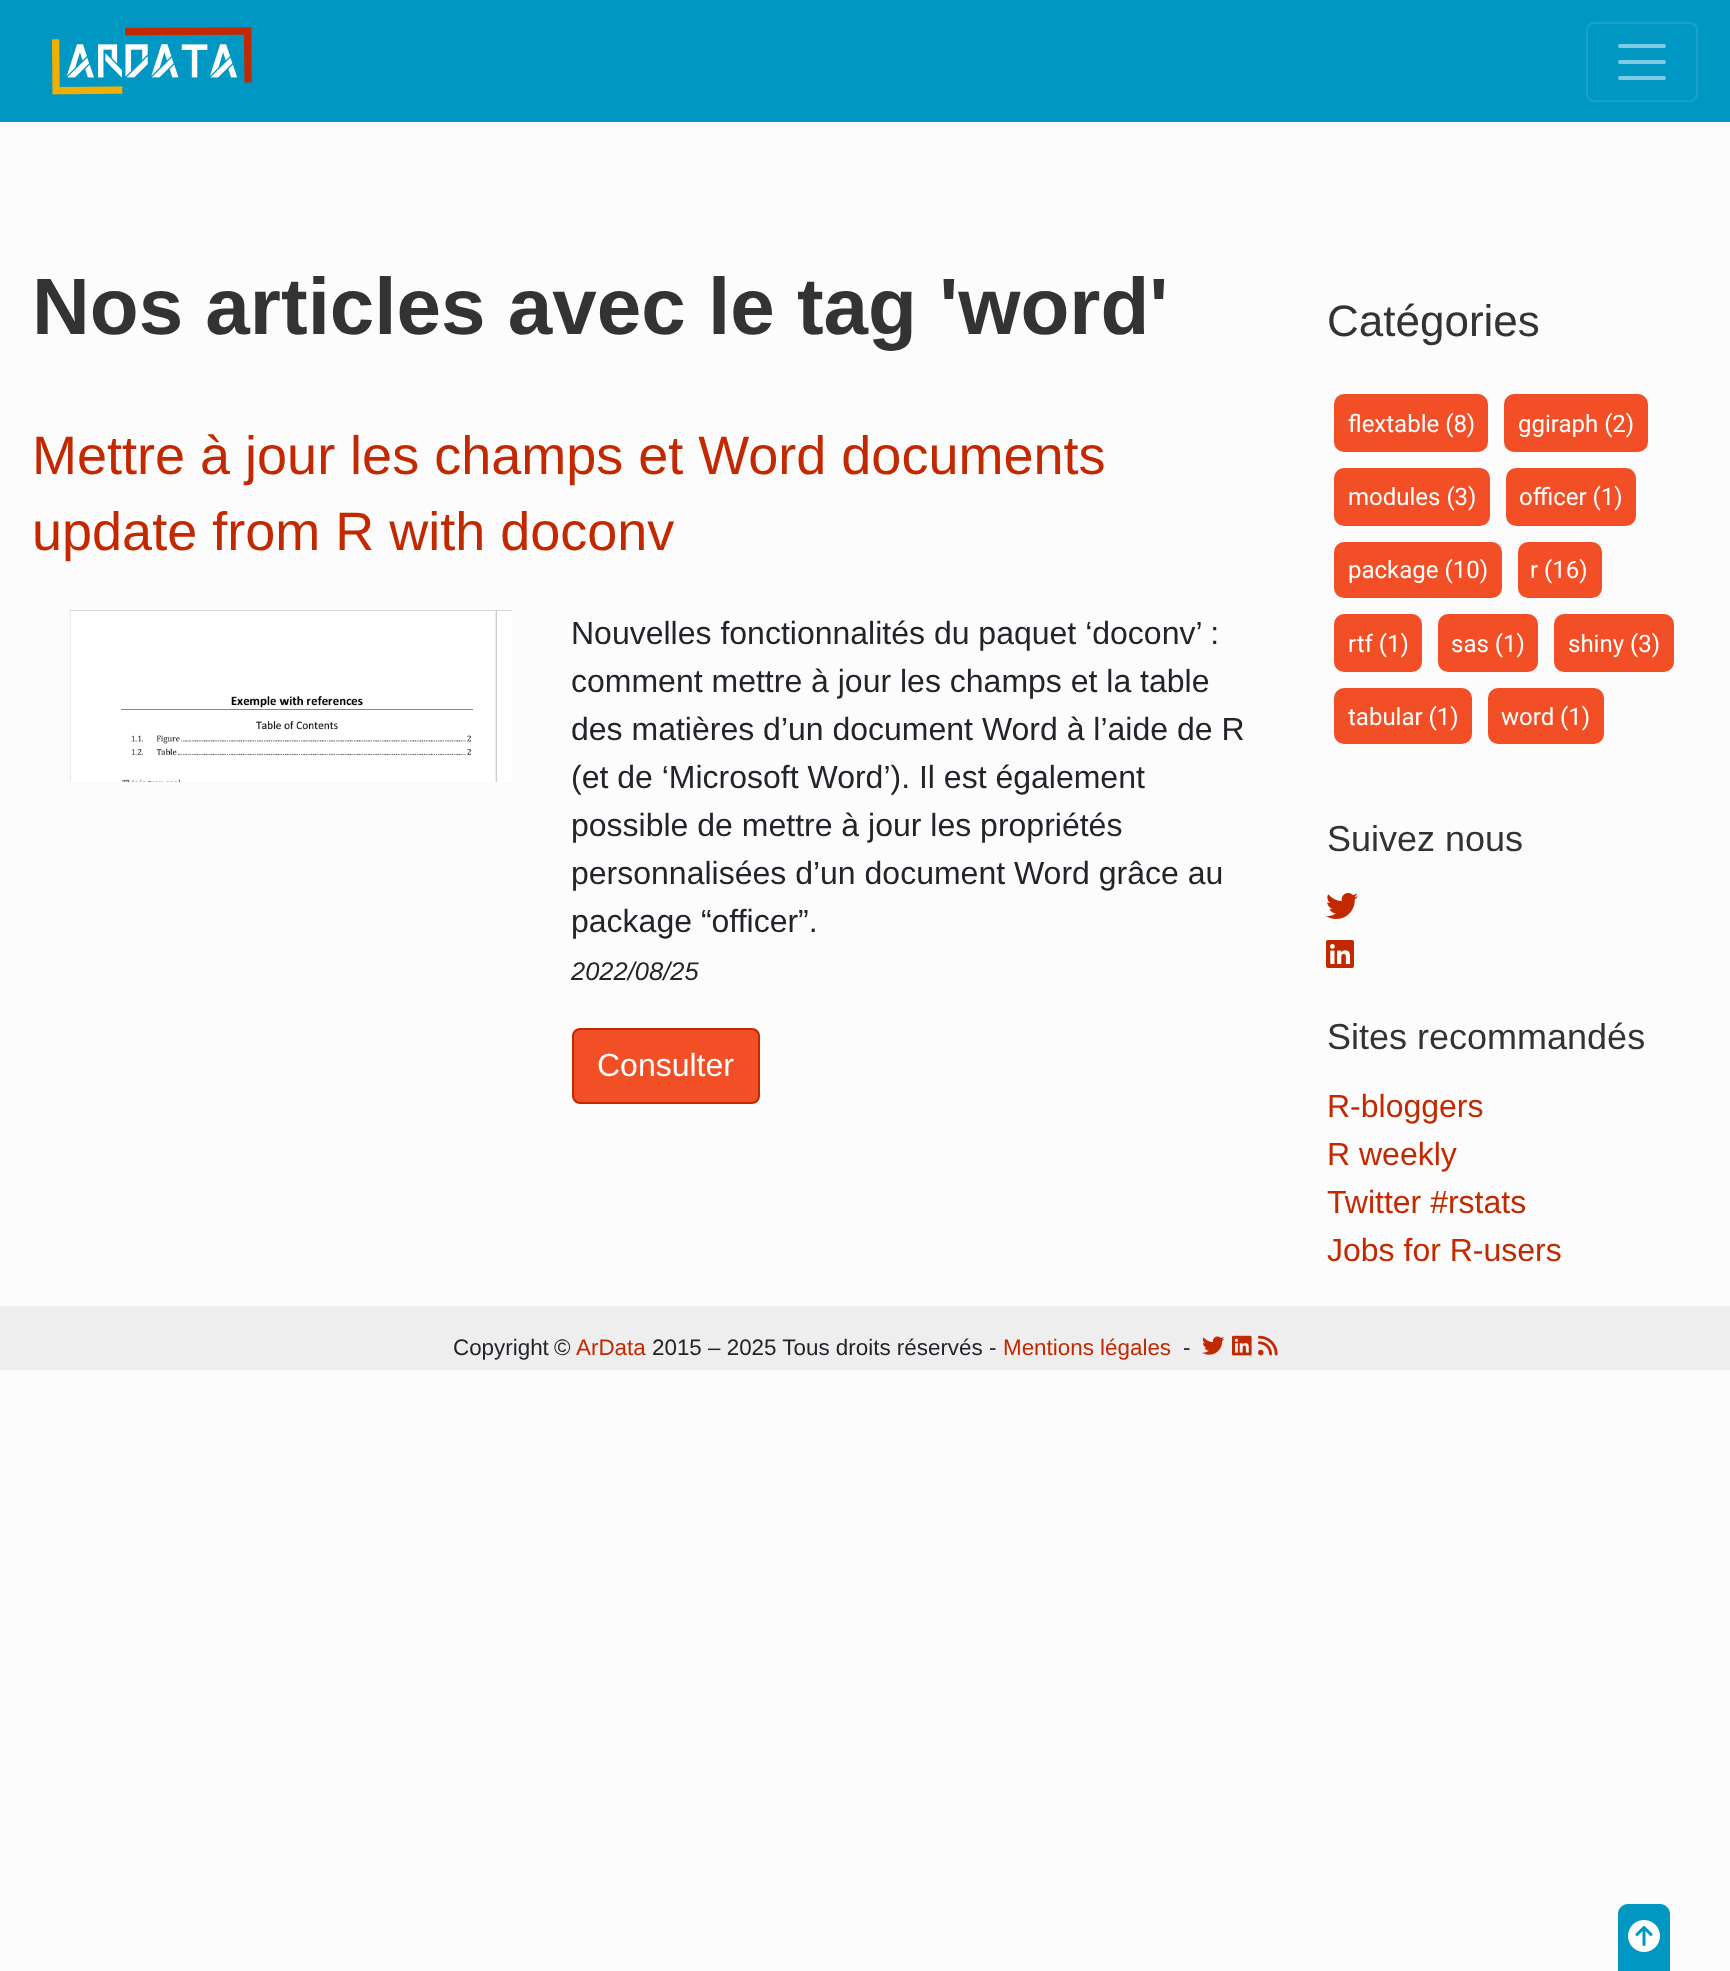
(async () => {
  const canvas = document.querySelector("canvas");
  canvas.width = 1730;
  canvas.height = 1971;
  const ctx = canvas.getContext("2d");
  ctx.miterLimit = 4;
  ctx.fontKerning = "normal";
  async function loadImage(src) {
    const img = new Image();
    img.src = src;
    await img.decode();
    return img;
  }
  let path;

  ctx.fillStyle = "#fcfcfc";
  ctx.fillRect(0, 0, 1730, 1971);
  ctx.fillStyle = "#0097c3";
  ctx.fillRect(0, 0, 1730, 122);
  ctx.drawImage(await loadImage("img/1.png"), 51, 27, 201, 68);
  ctx.beginPath();
  ctx.roundRect(1587, 23, 110, 78, 7);
  ctx.strokeStyle = "#1aa1c9";
  ctx.lineWidth = 2;
  ctx.stroke();
  path = new Path2D("M1620 46H1664M1620 62H1664M1620 78H1664");
  ctx.strokeStyle = "#80cbe1";
  ctx.lineWidth = 4;
  ctx.lineCap = "round";
  ctx.stroke(path);
  ctx.drawImage(await loadImage("img/2.png"), 69, 610, 443, 172);
  ctx.fillStyle = "#f24f26";
  ctx.beginPath();
  ctx.roundRect(573, 1029, 186, 74, 7);
  ctx.fill();
  ctx.strokeStyle = "#c32900";
  ctx.lineWidth = 2;
  ctx.stroke();
  ctx.beginPath();
  ctx.roundRect(1334, 394, 154, 58, 10);
  ctx.fill();
  ctx.beginPath();
  ctx.roundRect(1504, 394, 144, 58, 10);
  ctx.fill();
  ctx.beginPath();
  ctx.roundRect(1334, 468, 156, 58, 10);
  ctx.fill();
  ctx.beginPath();
  ctx.roundRect(1506, 468, 130, 58, 10);
  ctx.fill();
  ctx.beginPath();
  ctx.roundRect(1334, 542, 168, 56, 10);
  ctx.fill();
  ctx.beginPath();
  ctx.roundRect(1518, 542, 84, 56, 10);
  ctx.fill();
  ctx.beginPath();
  ctx.roundRect(1334, 614, 88, 58, 10);
  ctx.fill();
  ctx.beginPath();
  ctx.roundRect(1438, 614, 100, 58, 10);
  ctx.fill();
  ctx.beginPath();
  ctx.roundRect(1554, 614, 120, 58, 10);
  ctx.fill();
  ctx.beginPath();
  ctx.roundRect(1334, 688, 138, 56, 10);
  ctx.fill();
  ctx.beginPath();
  ctx.roundRect(1488, 688, 116, 56, 10);
  ctx.fill();
  ctx.drawImage(await loadImage("img/3.png"), 1326, 893, 32, 26);
  ctx.drawImage(await loadImage("img/4.png"), 1326, 940, 28, 28);
  ctx.fillStyle = "#eeeeee";
  ctx.fillRect(0, 1306, 1730, 64);
  ctx.drawImage(await loadImage("img/5.png"), 1202, 1336, 23, 19);
  ctx.drawImage(await loadImage("img/6.png"), 1232, 1335, 20, 21);
  ctx.drawImage(await loadImage("img/7.png"), 1258, 1335, 20, 21);
  ctx.fillStyle = "#0097c3";
  path = new Path2D("M1628 1904H1660C1665.5 1904 1670 1908.5 1670 1914V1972H1618V1914C1618 1908.5 1622.5 1904 1628 1904Z");
  ctx.fill(path);
  ctx.drawImage(await loadImage("img/8.png"), 1628, 1920, 32, 32);
  ctx.font = "bold 80px Liberation Sans";
  ctx.fillStyle = "#333333";
  ctx.fillText("Nos articles avec le tag 'word'", 32, 334);
  ctx.font = "54px Liberation Sans";
  ctx.fillStyle = "#c32900";
  ctx.fillText("Mettre à jour les champs et Word documents", 32, 474);
  ctx.fillText("update from R with doconv", 32, 550);
  ctx.font = "32px Liberation Sans";
  ctx.fillStyle = "#212529";
  for (const [text, x, y] of [
    ["Nouvelles fonctionnalités du paquet ‘doconv’ :", 571, 644],
    ["comment mettre à jour les champs et la table", 571, 692],
    ["des matières d’un document Word à l’aide de R", 571, 740],
    ["(et de ‘Microsoft Word’). Il est également", 571, 788],
    ["possible de mettre à jour les propriétés", 571, 836],
    ["personnalisées d’un document Word grâce au", 571, 884],
    ["package “officer”.", 571, 932],
  ]) {
    ctx.fillText(text, x, y);
  }
  ctx.font = "italic 25.5px Liberation Sans";
  ctx.fillText("2022/08/25", 571, 980);
  ctx.font = "32px Liberation Sans";
  ctx.fillStyle = "#ffffff";
  ctx.fillText("Consulter", 597, 1076);
  ctx.font = "44px Liberation Sans";
  ctx.fillStyle = "#333333";
  ctx.fillText("Catégories", 1327, 336);
  ctx.font = "24px Roboto";
  ctx.fillStyle = "#ffffff";
  for (const [text, x, y] of [
    ["flextable (8)", 1348, 432],
    ["ggiraph (2)", 1518, 432],
    ["modules (3)", 1348, 505],
    ["officer (1)", 1519, 505],
    ["package (10)", 1348, 578],
    ["r (16)", 1530, 578],
    ["rtf (1)", 1348, 652],
    ["sas (1)", 1451, 652],
    ["shiny (3)", 1568, 652],
    ["tabular (1)", 1348, 725],
    ["word (1)", 1501, 725],
  ]) {
    ctx.fillText(text, x, y);
  }
  ctx.font = "36px Liberation Sans";
  ctx.fillStyle = "#333333";
  ctx.fillText("Suivez nous", 1327, 851);
  ctx.fillText("Sites recommandés", 1327, 1049);
  ctx.font = "32px Liberation Sans";
  ctx.fillStyle = "#c32900";
  for (const [text, x, y] of [
    ["R-bloggers", 1327, 1117],
    ["R weekly", 1327, 1165],
    ["Twitter #rstats", 1327, 1213],
    ["Jobs for R-users", 1327, 1261],
  ]) {
    ctx.fillText(text, x, y);
  }
  ctx.wordSpacing = "-1px";
  ctx.font = "22.4px Liberation Sans";
  ctx.fillStyle = "#212529";
  ctx.fillText("Copyright ©", 453, 1355);
  ctx.wordSpacing = "0px";
  ctx.fillStyle = "#c32900";
  ctx.fillText("ArData", 576, 1355);
  ctx.fillStyle = "#212529";
  ctx.fillText("2015 – 2025 Tous droits réservés -", 652, 1355);
  ctx.fillStyle = "#c32900";
  ctx.fillText("Mentions légales", 1003, 1355);
  ctx.fillStyle = "#212529";
  ctx.fillText("-", 1183, 1355);
})();
